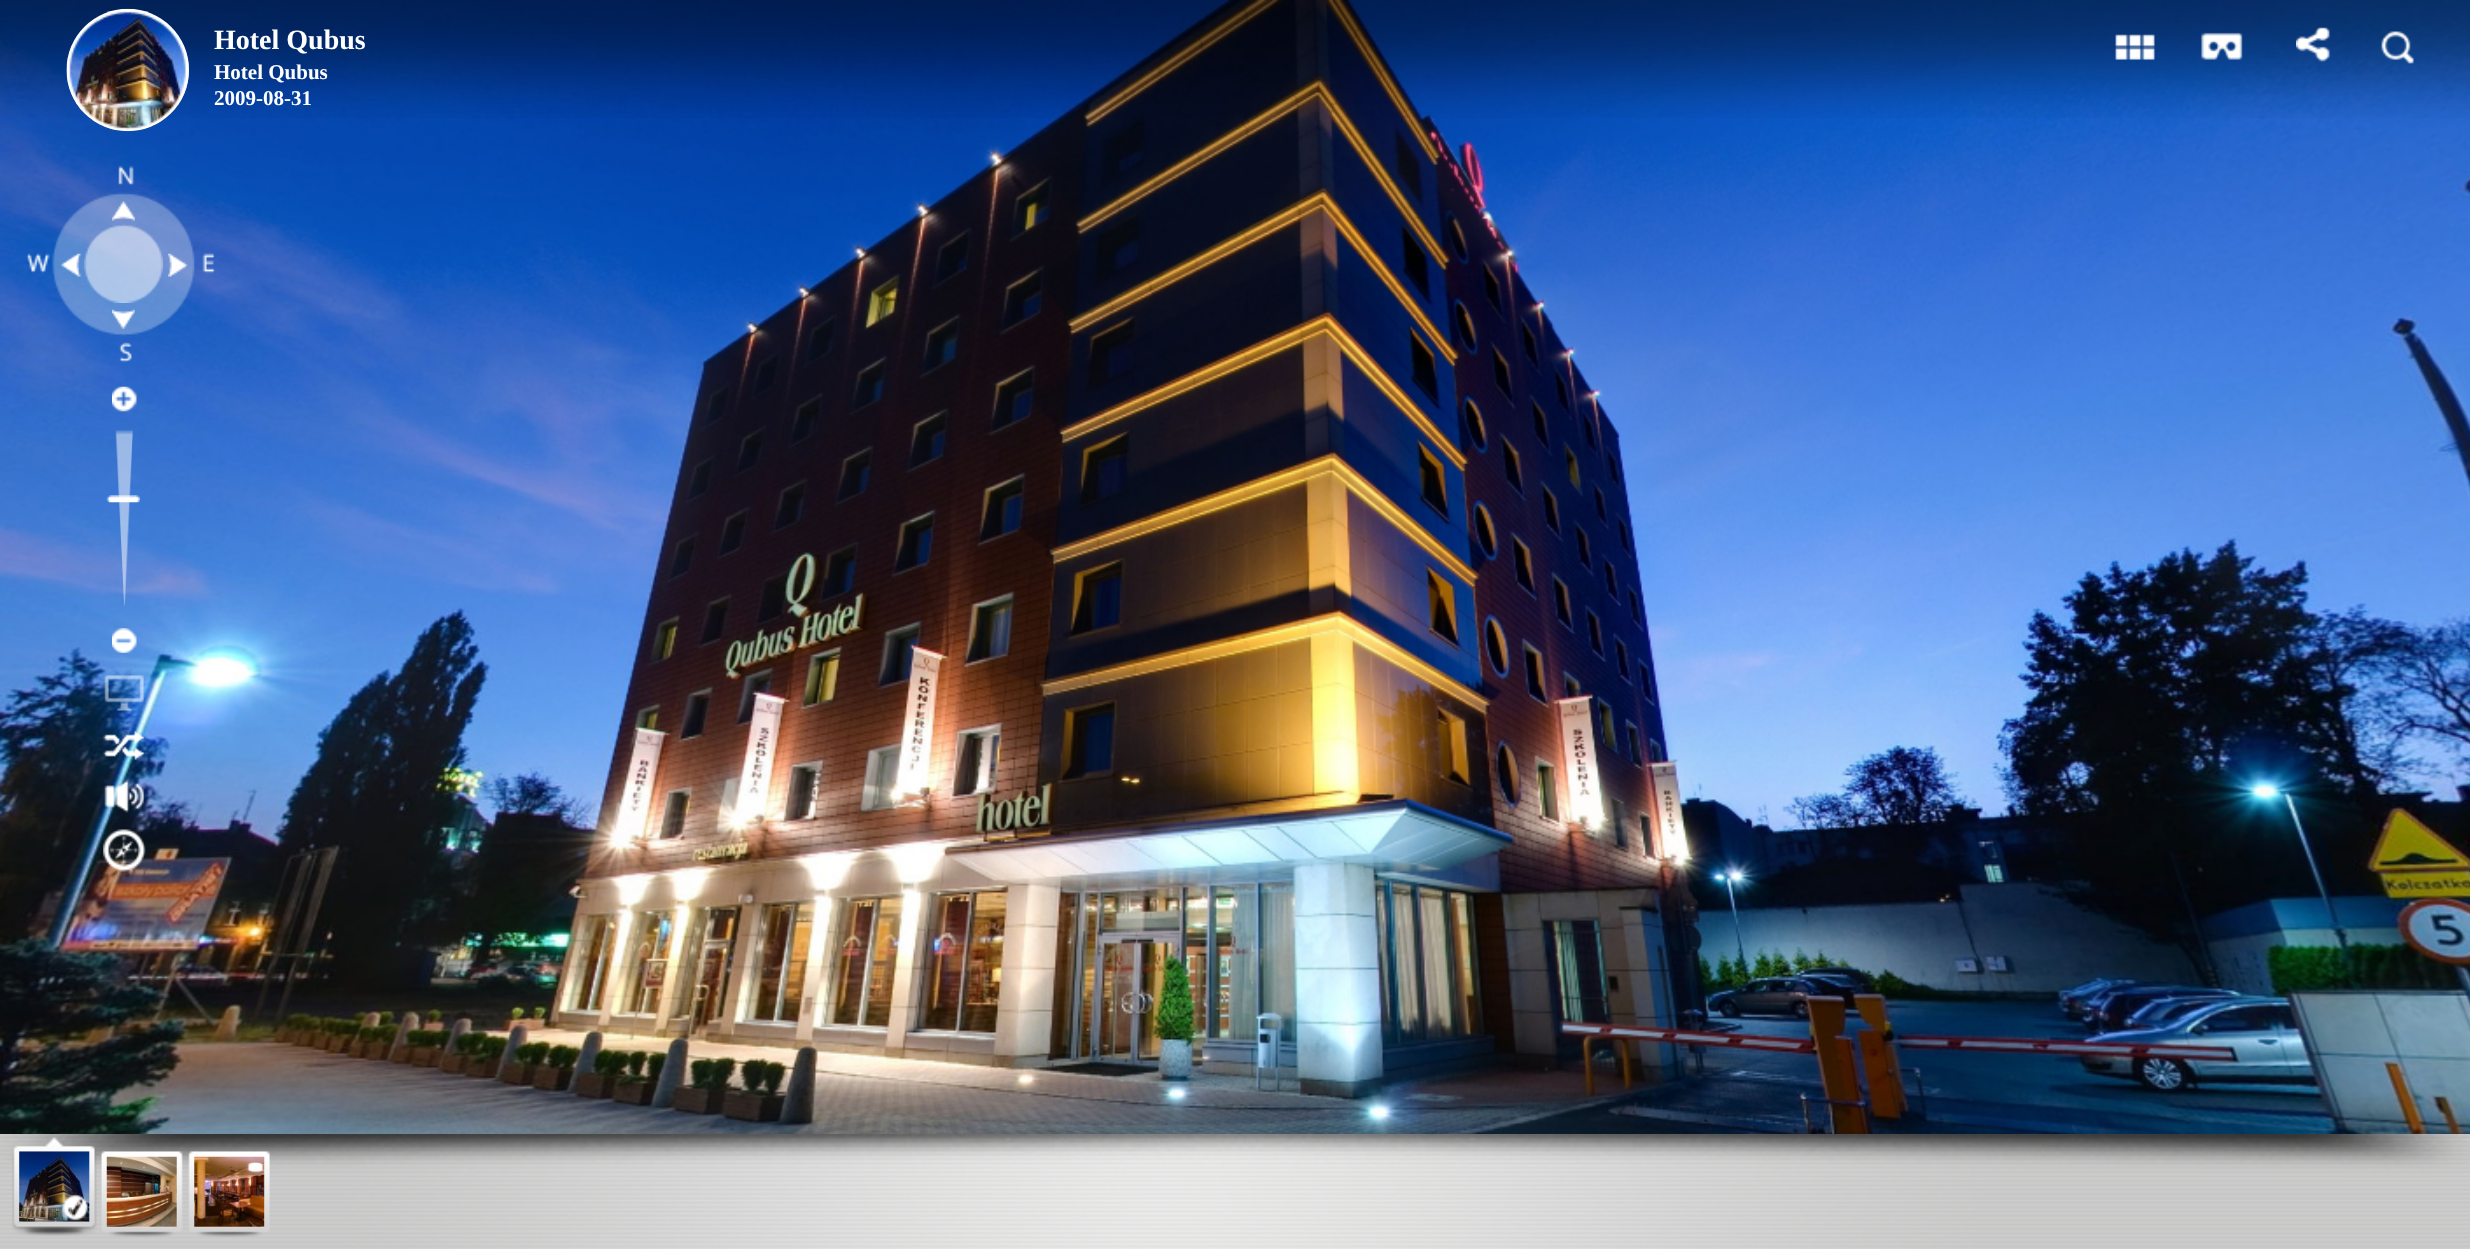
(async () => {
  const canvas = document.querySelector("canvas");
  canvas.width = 2470;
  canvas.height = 1249;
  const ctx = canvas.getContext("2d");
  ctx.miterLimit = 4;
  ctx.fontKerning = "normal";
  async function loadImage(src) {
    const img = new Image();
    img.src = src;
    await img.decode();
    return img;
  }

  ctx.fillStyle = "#ffffff";
  ctx.fillRect(0, 0, 2470, 1249);
  ctx.drawImage(await loadImage("img/1.png"), 0, 0, 2470, 1134);
  ctx.drawImage(await loadImage("img/2.png"), 0, 0, 2470, 118);
  ctx.drawImage(await loadImage("img/4.png"), 66, 9, 123, 123);
  ctx.drawImage(await loadImage("img/3.png"), 66, 8, 123, 124);
  ctx.drawImage(await loadImage("img/5.png"), 2115, 34, 40, 26);
  ctx.drawImage(await loadImage("img/6.png"), 2201, 32, 42, 28);
  ctx.drawImage(await loadImage("img/7.png"), 2296, 27, 34, 35);
  ctx.drawImage(await loadImage("img/8.png"), 2381, 31, 33, 33);
  ctx.drawImage(await loadImage("img/9.png"), 52, 192, 143, 144);
  ctx.drawImage(await loadImage("img/10.png"), 26, 166, 190, 197);
  ctx.drawImage(await loadImage("img/11.png"), 112, 201, 23, 20);
  ctx.drawImage(await loadImage("img/12.png"), 61, 253, 20, 24);
  ctx.drawImage(await loadImage("img/13.png"), 84, 224, 79, 79);
  ctx.drawImage(await loadImage("img/14.png"), 168, 253, 20, 24);
  ctx.drawImage(await loadImage("img/15.png"), 112, 309, 23, 20);
  ctx.drawImage(await loadImage("img/16.png"), 112, 386, 25, 26);
  ctx.drawImage(await loadImage("img/17.png"), 115, 430, 18, 176);
  ctx.drawImage(await loadImage("img/18.png"), 106, 495, 34, 8);
  ctx.drawImage(await loadImage("img/19.png"), 112, 628, 25, 25);
  ctx.drawImage(await loadImage("img/20.png"), 104, 675, 40, 36);
  ctx.drawImage(await loadImage("img/21.png"), 103, 731, 41, 29);
  ctx.drawImage(await loadImage("img/22.png"), 104, 780, 40, 33);
  ctx.drawImage(await loadImage("img/23.png"), 103, 829, 43, 43);
  ctx.drawImage(await loadImage("img/24.png"), 0, 1134, 2470, 115);
  ctx.drawImage(await loadImage("img/25.png"), 12, 1137, 85, 99);
  ctx.drawImage(await loadImage("img/26.png"), 19, 1151, 71, 71);
  ctx.drawImage(await loadImage("img/27.png"), 19, 1151, 71, 71);
  ctx.drawImage(await loadImage("img/28.png"), 101, 1151, 82, 86);
  ctx.drawImage(await loadImage("img/29.png"), 106, 1156, 71, 71);
  ctx.drawImage(await loadImage("img/30.png"), 188, 1151, 82, 86);
  ctx.drawImage(await loadImage("img/31.png"), 194, 1156, 71, 71);
  ctx.font = "bold 28px Liberation Serif";
  ctx.fillText("Hotel Qubus", 214, 49);
  ctx.font = "bold 21px Liberation Serif";
  ctx.fillText("Hotel Qubus", 214, 79);
  ctx.fillText("2009-08-31", 214, 105);
})();
